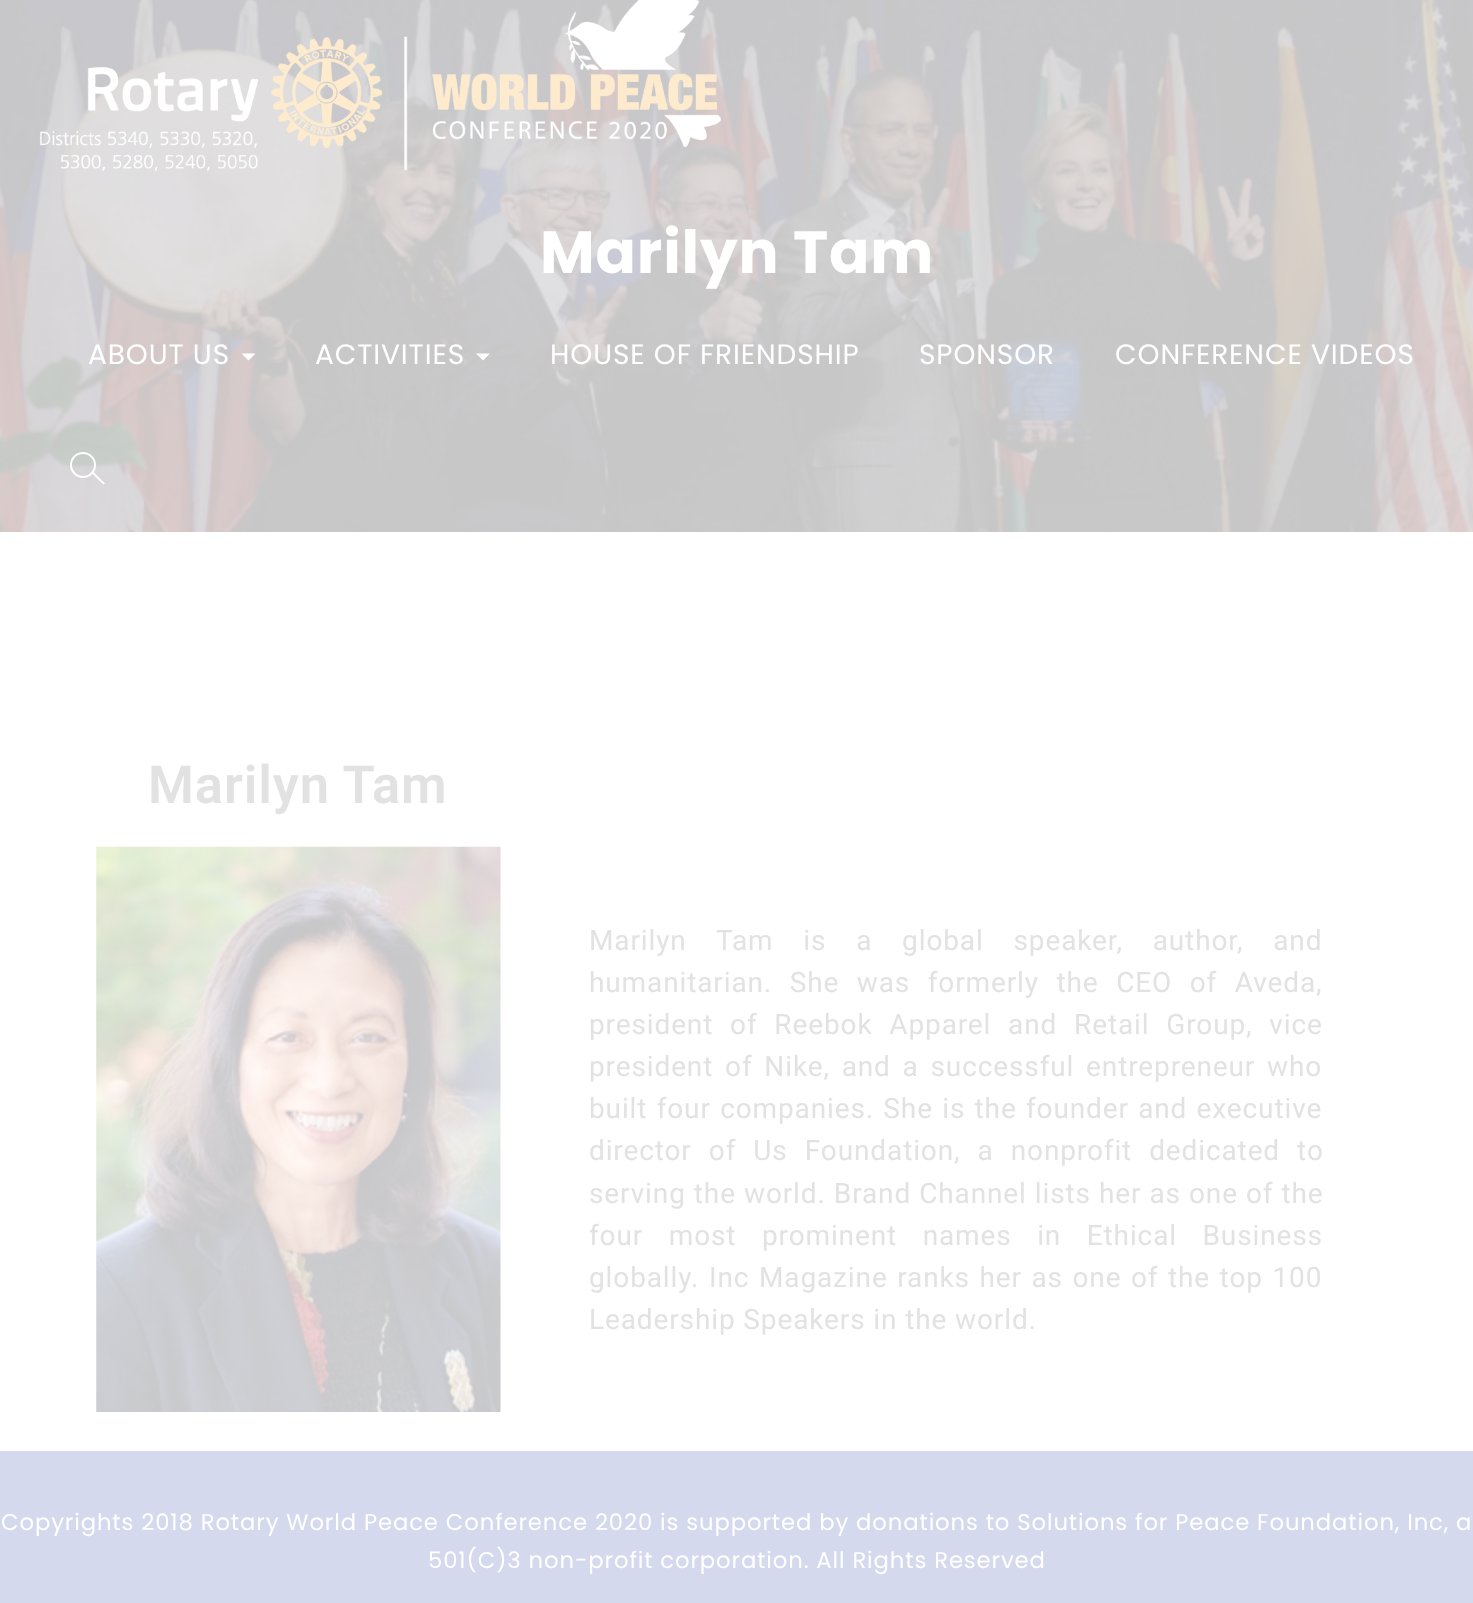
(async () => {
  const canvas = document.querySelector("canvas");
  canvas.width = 1473;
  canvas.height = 1603;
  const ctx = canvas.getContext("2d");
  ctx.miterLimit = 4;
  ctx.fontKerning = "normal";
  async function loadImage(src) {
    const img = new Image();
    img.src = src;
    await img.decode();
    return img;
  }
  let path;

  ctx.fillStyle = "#ffffff";
  ctx.fillRect(0, 0, 1473, 1603);
  ctx.drawImage(await loadImage("img/1.png"), 0, 0, 1473, 532);
  ctx.drawImage(await loadImage("img/2.png"), 96, 846, 405, 566);
  ctx.drawImage(await loadImage("img/3.png"), 39, 0, 683, 171);
  path = new Path2D("M241.5 353.5H255.5L248.5 360.5Z");
  ctx.fill(path);
  path = new Path2D("M476 353.5H490L483 360.5Z");
  ctx.fill(path);
  ctx.beginPath();
  ctx.arc(83, 465, 12, 0, Math.PI * 2);
  ctx.strokeStyle = "#ffffff";
  ctx.lineWidth = 2;
  ctx.stroke();
  path = new Path2D("M91 472.5L92.5 471L105 483.5L103.5 484.5Z");
  ctx.fill(path);
  ctx.fillStyle = "#d5d9ee";
  ctx.fillRect(0, 1451, 1473, 152);
  ctx.letterSpacing = "0.88px";
  ctx.font = "bold 59.5px Poppins";
  ctx.fillStyle = "#ffffff";
  ctx.fillText("Marilyn Tam", 540, 273);
  ctx.font = "600 52.5px Roboto";
  ctx.fillStyle = "#e2e2e2";
  ctx.fillText("Marilyn Tam", 148, 803);
  ctx.wordSpacing = "22px";
  ctx.font = "28px Roboto";
  ctx.fillText("Marilyn Tam is a global speaker, author, and", 589, 950);
  ctx.wordSpacing = "9.75px";
  ctx.fillText("humanitarian. She was formerly the CEO of Aveda,", 589, 992);
  ctx.wordSpacing = "9px";
  ctx.fillText("president of Reebok Apparel and Retail Group, vice", 589, 1034);
  ctx.wordSpacing = "4px";
  ctx.fillText("president of Nike, and a successful entrepreneur who", 589, 1076);
  ctx.wordSpacing = "1.5px";
  ctx.fillText("built four companies. She is the founder and executive", 589, 1118);
  ctx.wordSpacing = "9.25px";
  ctx.fillText("director of Us Foundation, a nonprofit dedicated to", 589, 1160);
  ctx.wordSpacing = "0.25px";
  ctx.fillText("serving the world. Brand Channel lists her as one of the", 589, 1203);
  ctx.wordSpacing = "17.75px";
  ctx.fillText("four most prominent names in Ethical Business", 589, 1245);
  ctx.wordSpacing = "0px";
  ctx.fillText("globally.", 589, 1287);
  ctx.wordSpacing = "1.75px";
  ctx.fillText("Inc Magazine ranks her as one of the top 100", 709, 1287);
  ctx.wordSpacing = "0px";
  ctx.fillText("Leadership Speakers in the world.", 589, 1329);
  ctx.font = "28px Poppins";
  ctx.fillStyle = "#ffffff";
  for (const [text, x, y] of [
    ["ABOUT US", 88, 364],
    ["ACTIVITIES", 315, 364],
    ["HOUSE OF FRIENDSHIP", 550, 364],
    ["SPONSOR", 919, 364],
    ["CONFERENCE VIDEOS", 1115, 364],
  ]) {
    ctx.fillText(text, x, y);
  }
  ctx.font = "22.75px Poppins";
  ctx.fillText("Copyrights 2018 Rotary World Peace Conference 2020 is supported by donations to Solutions for Peace Foundation, Inc, a", 1, 1530);
  ctx.fillText("501(C)3 non-profit corporation. All Rights Reserved", 428, 1568);
})();
